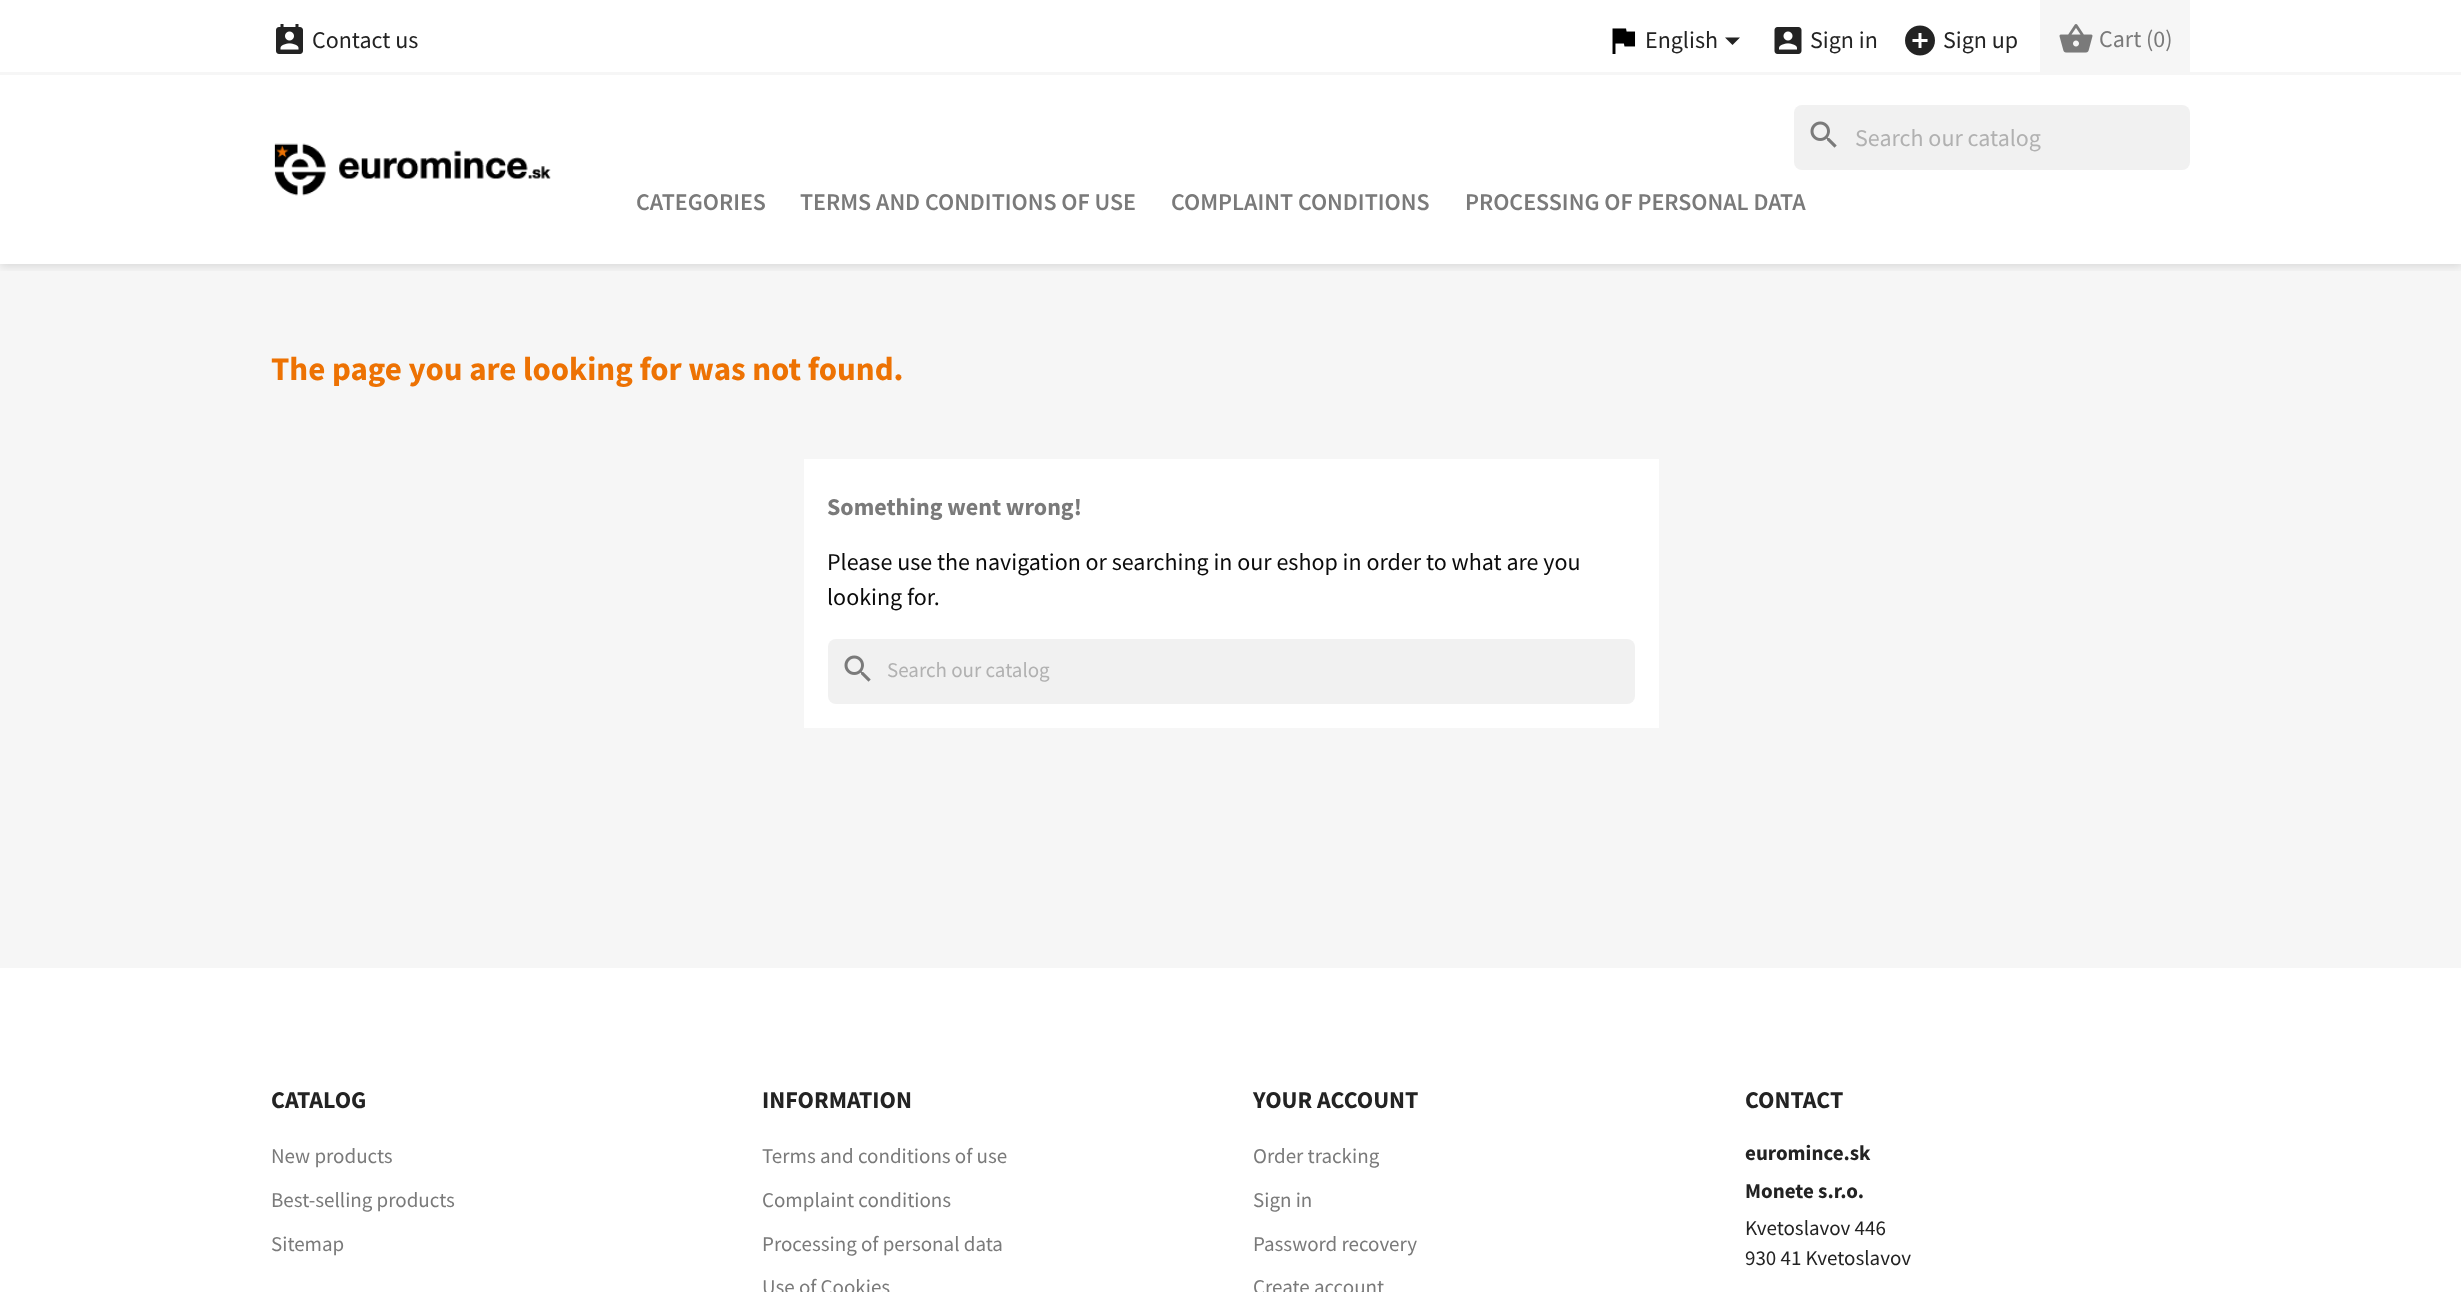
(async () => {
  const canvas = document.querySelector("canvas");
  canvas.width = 2461;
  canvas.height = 1292;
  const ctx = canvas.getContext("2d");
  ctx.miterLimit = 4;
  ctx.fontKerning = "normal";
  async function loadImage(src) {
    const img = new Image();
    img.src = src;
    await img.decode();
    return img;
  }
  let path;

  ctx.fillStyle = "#ffffff";
  ctx.fillRect(0, 0, 2461, 1292);
  ctx.fillStyle = "#f6f6f6";
  ctx.fillRect(0, 264, 2461, 704);
  ctx.save();
  ctx.beginPath();
  ctx.rect(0, 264, 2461, 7);
  ctx.clip();
  ctx.fillStyle = "rgba(0, 0, 0, 0.11)";
  ctx.filter = "blur(4px)";
  ctx.beginPath();
  ctx.rect(0, 3, 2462, 264);
  ctx.fill();
  ctx.filter = "none";
  ctx.restore();
  ctx.fillRect(0, 72, 2461, 3);
  ctx.drawImage(await loadImage("img/1.png"), 276, 24, 27, 30);
  ctx.drawImage(await loadImage("img/2.png"), 1612, 28, 24, 26);
  ctx.fillStyle = "#232323";
  path = new Path2D("M1725 37.5H1740L1732.5 45Z");
  ctx.fill(path);
  ctx.drawImage(await loadImage("img/3.png"), 1774, 27, 28, 27);
  ctx.drawImage(await loadImage("img/4.png"), 1905, 25, 30, 31);
  ctx.fillStyle = "#f6f6f6";
  ctx.fillRect(2040, 0, 150, 72);
  ctx.drawImage(await loadImage("img/5.png"), 2059, 24, 34, 29);
  ctx.drawImage(await loadImage("img/6.png"), 274, 143, 277, 53);
  ctx.fillStyle = "#f1f1f1";
  ctx.beginPath();
  ctx.roundRect(1794, 105, 396, 65, 8);
  ctx.fill();
  ctx.drawImage(await loadImage("img/7.png"), 1810, 121, 27, 27);
  ctx.fillStyle = "#ffffff";
  ctx.fillRect(804, 459, 855, 269);
  ctx.fillStyle = "#f1f1f1";
  ctx.beginPath();
  ctx.roundRect(828, 639, 807, 65, 8);
  ctx.fill();
  ctx.drawImage(await loadImage("img/7.png"), 844, 655, 27, 27);
  ctx.font = "24px Source Sans Pro";
  ctx.fillStyle = "#232323";
  for (const [text, x, y] of [
    ["Contact us", 312, 48],
    ["English", 1645, 48],
    ["Sign in", 1810, 48],
    ["Sign up", 1943, 48],
  ]) {
    ctx.fillText(text, x, y);
  }
  ctx.fillStyle = "#7a7a7a";
  ctx.fillText("Cart (0)", 2099, 47);
  ctx.fillStyle = "#b1b1b1";
  ctx.fillText("Search our catalog", 1855, 146);
  ctx.font = "600 24px Source Sans Pro";
  ctx.fillStyle = "#7a7a7a";
  for (const [text, x, y] of [
    ["CATEGORIES", 636, 210],
    ["TERMS AND CONDITIONS OF USE", 800, 210],
    ["COMPLAINT CONDITIONS", 1171, 210],
    ["PROCESSING OF PERSONAL DATA", 1465, 210],
  ]) {
    ctx.fillText(text, x, y);
  }
  ctx.font = "bold 33px Source Sans Pro";
  ctx.fillStyle = "#ed7203";
  ctx.fillText("The page you are looking for was not found.", 271, 380);
  ctx.font = "bold 24px Source Sans Pro";
  ctx.fillStyle = "#7a7a7a";
  ctx.fillText("Something went wrong!", 827, 515);
  ctx.font = "24px Source Sans Pro";
  ctx.fillStyle = "#0b0b0b";
  ctx.fillText("Please use the navigation or searching in our eshop in order to what are you", 827, 570);
  ctx.fillText("looking for.", 827, 605);
  ctx.font = "21px Source Sans Pro";
  ctx.fillStyle = "#b1b1b1";
  ctx.fillText("Search our catalog", 887, 677);
  ctx.font = "bold 24px Source Sans Pro";
  ctx.fillStyle = "#232323";
  ctx.fillText("CATALOG", 271, 1108);
  ctx.font = "21px Source Sans Pro";
  ctx.fillStyle = "#7a7a7a";
  for (const [text, x, y] of [
    ["New products", 271, 1163],
    ["Best-selling products", 271, 1207],
    ["Sitemap", 271, 1251],
  ]) {
    ctx.fillText(text, x, y);
  }
  ctx.font = "bold 24px Source Sans Pro";
  ctx.fillStyle = "#232323";
  ctx.fillText("INFORMATION", 762, 1108);
  ctx.font = "21px Source Sans Pro";
  ctx.fillStyle = "#7a7a7a";
  for (const [text, x, y] of [
    ["Terms and conditions of use", 762, 1163],
    ["Complaint conditions", 762, 1207],
    ["Processing of personal data", 762, 1251],
    ["Use of Cookies", 762, 1294],
  ]) {
    ctx.fillText(text, x, y);
  }
  ctx.font = "bold 24px Source Sans Pro";
  ctx.fillStyle = "#232323";
  ctx.fillText("YOUR ACCOUNT", 1253, 1108);
  ctx.font = "21px Source Sans Pro";
  ctx.fillStyle = "#7a7a7a";
  for (const [text, x, y] of [
    ["Order tracking", 1253, 1163],
    ["Sign in", 1253, 1207],
    ["Password recovery", 1253, 1251],
    ["Create account", 1253, 1294],
  ]) {
    ctx.fillText(text, x, y);
  }
  ctx.font = "bold 24px Source Sans Pro";
  ctx.fillStyle = "#232323";
  ctx.fillText("CONTACT", 1745, 1108);
  ctx.font = "bold 21px Source Sans Pro";
  ctx.fillText("euromince.sk", 1745, 1160);
  ctx.fillText("Monete s.r.o.", 1745, 1198);
  ctx.font = "21px Source Sans Pro";
  ctx.fillText("Kvetoslavov 446", 1745, 1235);
  ctx.fillText("930 41 Kvetoslavov", 1745, 1265);
})();
